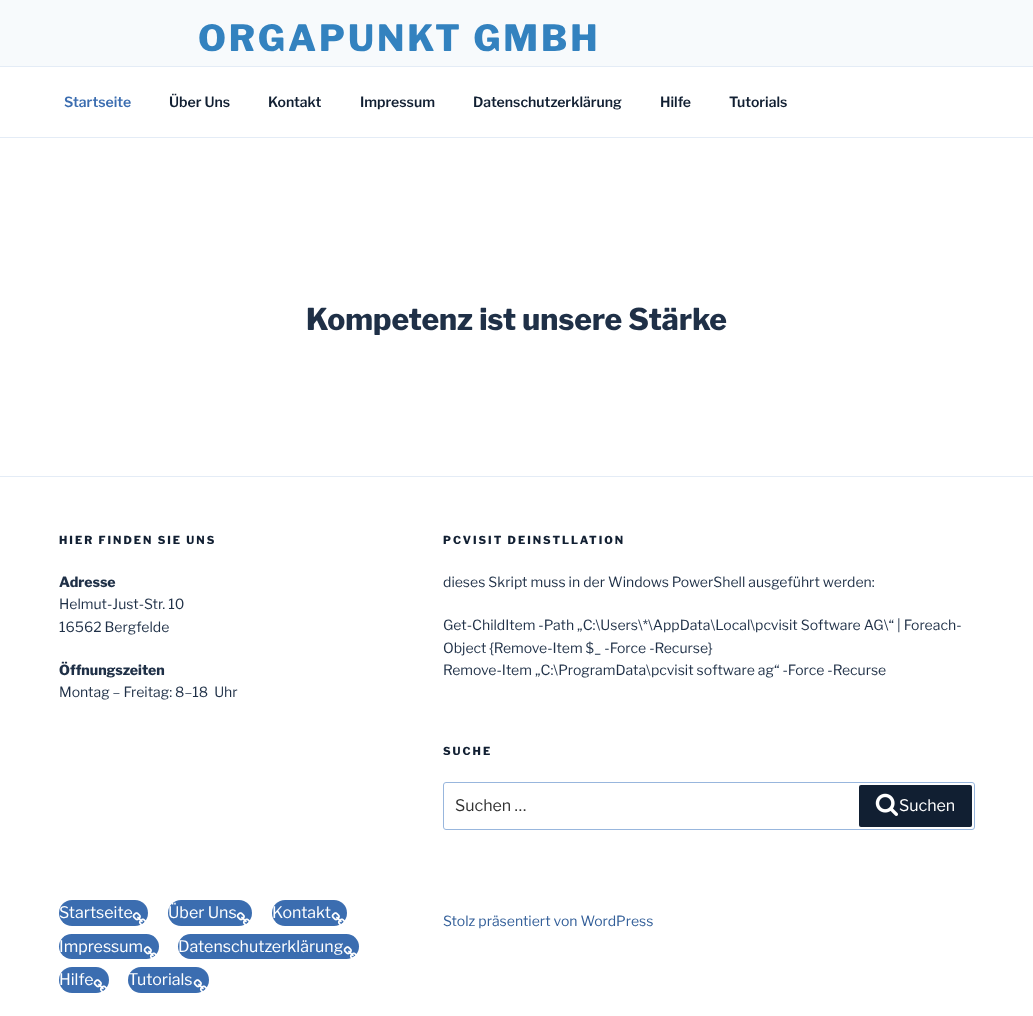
(async () => {
  const canvas = document.querySelector("canvas");
  canvas.width = 1033;
  canvas.height = 1016;
  const ctx = canvas.getContext("2d");
  ctx.miterLimit = 4;
  ctx.fontKerning = "normal";
  async function loadImage(src) {
    const img = new Image();
    img.src = src;
    await img.decode();
    return img;
  }

  ctx.fillStyle = "#ffffff";
  ctx.fillRect(0, 0, 1033, 1016);
  for (const [x, y, w, h, color] of [
    [0, 0, 1033, 66, "#f7fafc"],
    [0, 66, 1033, 1, "#e4ecf6"],
    [0, 137, 1033, 1, "#e4ecf6"],
    [0, 476, 1033, 1, "#e4ecf6"],
  ]) {
    ctx.fillStyle = color;
    ctx.fillRect(x, y, w, h);
  }
  ctx.beginPath();
  ctx.roundRect(443.5, 782.5, 531, 47, 2.5);
  ctx.strokeStyle = "#98b6dd";
  ctx.stroke();
  ctx.fillStyle = "#111f32";
  ctx.beginPath();
  ctx.roundRect(859, 785, 113, 42, 2);
  ctx.fill();
  ctx.drawImage(await loadImage("img/1.png"), 875, 793, 23, 23);
  ctx.fillStyle = "#3b6db0";
  ctx.beginPath();
  ctx.roundRect(59, 900, 89, 26, 13);
  ctx.fill();
  ctx.drawImage(await loadImage("img/2.png"), 132, 912, 14, 13);
  ctx.beginPath();
  ctx.roundRect(168, 900, 84, 26, 13);
  ctx.fill();
  ctx.drawImage(await loadImage("img/2.png"), 236, 912, 14, 13);
  ctx.beginPath();
  ctx.roundRect(272, 900, 75, 26, 13);
  ctx.fill();
  ctx.drawImage(await loadImage("img/2.png"), 331, 912, 14, 13);
  ctx.beginPath();
  ctx.roundRect(59, 934, 100, 25, 12.5);
  ctx.fill();
  ctx.drawImage(await loadImage("img/3.png"), 143, 946, 14, 13);
  ctx.beginPath();
  ctx.roundRect(178, 934, 181, 25, 12.5);
  ctx.fill();
  ctx.drawImage(await loadImage("img/3.png"), 343, 946, 14, 13);
  ctx.beginPath();
  ctx.roundRect(59, 967, 50, 26, 13);
  ctx.fill();
  ctx.drawImage(await loadImage("img/2.png"), 93, 979, 14, 13);
  ctx.beginPath();
  ctx.roundRect(128, 967, 81, 26, 13);
  ctx.fill();
  ctx.drawImage(await loadImage("img/2.png"), 193, 979, 14, 13);
  ctx.letterSpacing = "2.9px";
  ctx.font = "800 36px Libre Franklin";
  ctx.fillStyle = "#3382bf";
  ctx.fillText("ORGAPUNKT GMBH", 198, 51);
  ctx.letterSpacing = "0px";
  ctx.font = "600 14px Libre Franklin";
  ctx.fillStyle = "#3b6db0";
  ctx.fillText("Startseite", 64, 107);
  ctx.fillStyle = "#111f32";
  for (const [text, x, y] of [
    ["Über Uns", 169, 107],
    ["Kontakt", 268, 107],
    ["Impressum", 360, 107],
    ["Datenschutzerklärung", 473, 107],
    ["Hilfe", 660, 107],
    ["Tutorials", 729, 107],
  ]) {
    ctx.fillText(text, x, y);
  }
  ctx.font = "800 30px Libre Franklin";
  ctx.fillStyle = "#1f3047";
  ctx.fillText("Kompetenz ist unsere Stärke", 306, 330);
  ctx.letterSpacing = "2px";
  ctx.font = "800 11px Libre Franklin";
  ctx.fillStyle = "#111f32";
  ctx.fillText("HIER FINDEN SIE UNS", 59, 544);
  ctx.letterSpacing = "0px";
  ctx.font = "800 14px Libre Franklin";
  ctx.fillStyle = "#1f3047";
  ctx.fillText("Adresse", 59, 587);
  ctx.font = "14px Libre Franklin";
  ctx.fillText("Helmut-Just-Str. 10", 59, 609);
  ctx.fillText("16562 Bergfelde", 59, 632);
  ctx.font = "800 14px Libre Franklin";
  ctx.fillText("Öffnungszeiten", 59, 675);
  ctx.font = "14px Libre Franklin";
  ctx.fillText("Montag – Freitag: 8–18  Uhr", 59, 697);
  ctx.letterSpacing = "2px";
  ctx.font = "800 11px Libre Franklin";
  ctx.fillStyle = "#111f32";
  ctx.fillText("PCVISIT DEINSTLLATION", 443, 544);
  ctx.letterSpacing = "0px";
  ctx.font = "14px Libre Franklin";
  ctx.fillStyle = "#1f3047";
  for (const [text, x, y] of [
    ["dieses Skript muss in der Windows PowerShell ausgeführt werden:", 443, 587],
    ["Get-ChildItem -Path „C:\\Users\\*\\AppData\\Local\\pcvisit Software AG\\“ | Foreach-", 443, 630],
    ["Object {Remove-Item $_ -Force -Recurse}", 443, 653],
    ["Remove-Item „C:\\ProgramData\\pcvisit software ag“ -Force -Recurse", 443, 675],
  ]) {
    ctx.fillText(text, x, y);
  }
  ctx.letterSpacing = "2px";
  ctx.font = "800 11px Libre Franklin";
  ctx.fillStyle = "#111f32";
  ctx.fillText("SUCHE", 443, 755);
  ctx.letterSpacing = "0px";
  ctx.font = "16px Libre Franklin";
  ctx.fillStyle = "#333333";
  ctx.fillText("Suchen …", 455, 811);
  ctx.fillStyle = "#ffffff";
  for (const [text, x, y] of [
    ["Suchen", 899, 811],
    ["Startseite", 59, 918],
    ["Über Uns", 168, 918],
    ["Kontakt", 272, 918],
    ["Impressum", 59, 952],
    ["Datenschutzerklärung", 178, 952],
    ["Hilfe", 59, 985],
    ["Tutorials", 128, 985],
  ]) {
    ctx.fillText(text, x, y);
  }
  ctx.font = "14px Libre Franklin";
  ctx.fillStyle = "#335f99";
  ctx.fillText("Stolz präsentiert von WordPress", 443, 926);
})();
